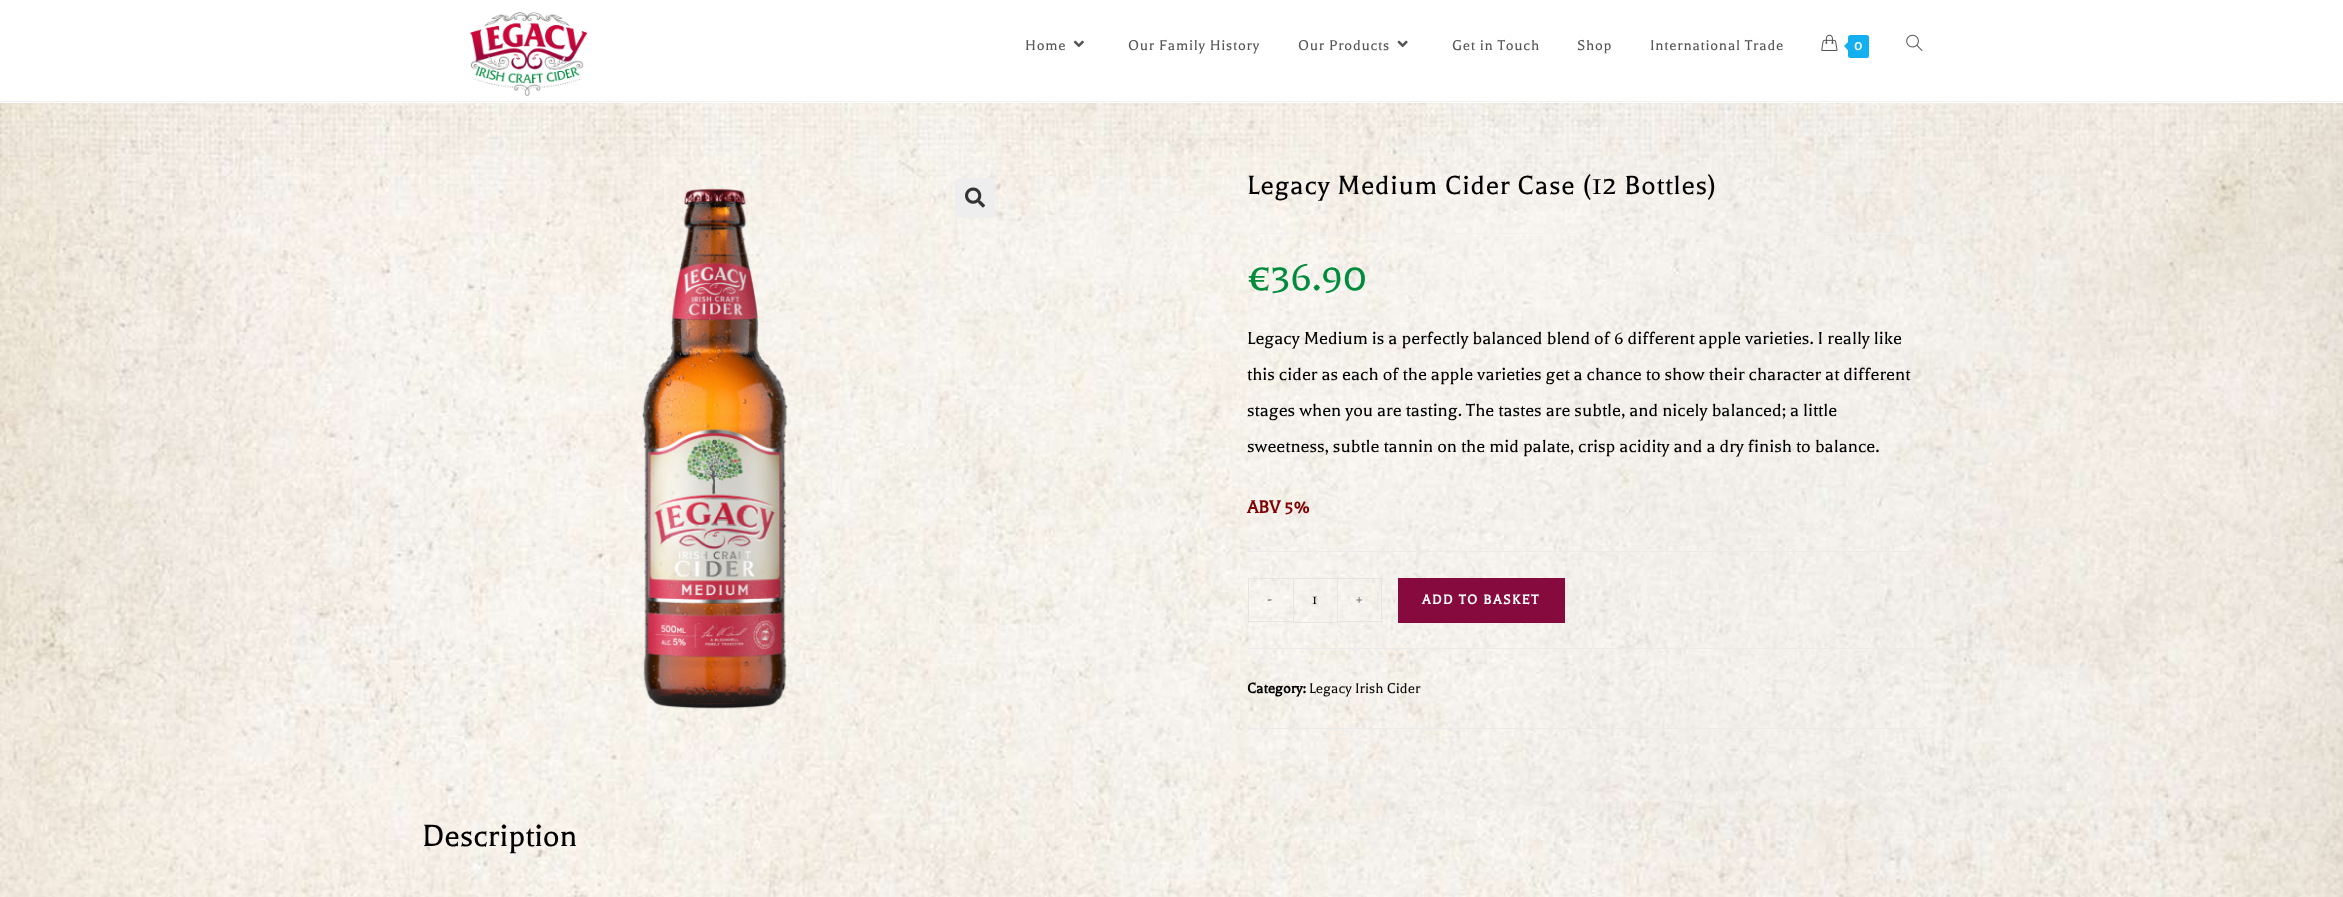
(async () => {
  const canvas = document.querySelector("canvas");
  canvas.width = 2343;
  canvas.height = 897;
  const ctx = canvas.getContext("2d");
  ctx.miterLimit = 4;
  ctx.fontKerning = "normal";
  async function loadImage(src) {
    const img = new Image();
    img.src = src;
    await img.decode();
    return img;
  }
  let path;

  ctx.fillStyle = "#ffffff";
  ctx.fillRect(0, 0, 2343, 897);
  ctx.drawImage(await loadImage("img/1.png"), 0, 103, 2343, 794);
  ctx.fillStyle = "#f1f1f1";
  ctx.fillRect(0, 101, 2343, 1);
  ctx.drawImage(await loadImage("img/2.png"), 469, 12, 119, 84);
  ctx.drawImage(await loadImage("img/3.png"), 1073, 40, 11, 8);
  ctx.drawImage(await loadImage("img/4.png"), 1397, 40, 11, 8);
  ctx.drawImage(await loadImage("img/5.png"), 1821, 34, 17, 17);
  ctx.fillStyle = "#13aff0";
  ctx.beginPath();
  ctx.roundRect(1848, 35, 21, 23, 2.5);
  ctx.fill();
  path = new Path2D("M1850 40V52.5L1844 46Z");
  ctx.fill(path);
  ctx.drawImage(await loadImage("img/6.png"), 1906, 34, 17, 17);
  ctx.drawImage(await loadImage("img/7.png"), 642, 188, 146, 521);
  ctx.fillStyle = "#eeeeee";
  ctx.beginPath();
  ctx.roundRect(955, 178, 40, 40, 4);
  ctx.fill();
  ctx.drawImage(await loadImage("img/8.png"), 965, 187, 20, 21);
  for (const [x, y, w, h, color] of [
    [1248, 233, 675, 1, "#f1f1f1"],
    [1248, 551, 675, 1, "#eaeaea"],
    [1248, 648, 675, 1, "#eaeaea"],
    [1248, 578, 45, 1, "#e4e4e4"],
    [1248, 621, 45, 1, "#e4e4e4"],
    [1248, 578, 1, 45, "#e4e4e4"],
  ]) {
    ctx.fillStyle = color;
    ctx.fillRect(x, y, w, h);
  }
  ctx.strokeStyle = "#e4e4e4";
  ctx.strokeRect(1293.5, 578.5, 44, 44);
  for (const [x, y, w, h, color] of [
    [1338, 578, 45, 1, "#e4e4e4"],
    [1381, 578, 1, 45, "#e4e4e4"],
    [1338, 621, 45, 1, "#e4e4e4"],
    [1398, 578, 167, 45, "#860a3d"],
    [1248, 728, 675, 1, "#eaeaea"],
  ]) {
    ctx.fillStyle = color;
    ctx.fillRect(x, y, w, h);
  }
  ctx.letterSpacing = "0.75px";
  ctx.font = "16.25px Balthazar";
  ctx.fillStyle = "#555555";
  for (const [text, x, y] of [
    ["Home", 1025, 50],
    ["Our Family History", 1128, 50],
    ["Our Products", 1298, 50],
    ["Get in Touch", 1452, 50],
    ["Shop", 1577, 50],
    ["International Trade", 1650, 50],
  ]) {
    ctx.fillText(text, x, y);
  }
  ctx.letterSpacing = "0px";
  ctx.font = "bold 15px Balthazar";
  ctx.fillStyle = "#ffffff";
  ctx.fillText("0", 1854, 50);
  ctx.letterSpacing = "0.75px";
  ctx.font = "30px Balthazar";
  ctx.fillStyle = "#000000";
  ctx.fillText("Legacy Medium Cider Case (12 Bottles)", 1247, 194);
  ctx.letterSpacing = "0px";
  ctx.font = "45px Balthazar";
  ctx.fillStyle = "#008b3d";
  ctx.fillText("€36.90", 1247, 290);
  ctx.font = "20px Balthazar";
  ctx.fillStyle = "#000000";
  for (const [text, x, y] of [
    ["Legacy Medium is a perfectly balanced blend of 6 different apple varieties. I really like", 1247, 344],
    ["this cider as each of the apple varieties get a chance to show their character at different", 1247, 380],
    ["stages when you are tasting. The tastes are subtle, and nicely balanced; a little", 1247, 416],
    ["sweetness, subtle tannin on the mid palate, crisp acidity and a dry finish to balance.", 1247, 452],
  ]) {
    ctx.fillText(text, x, y);
  }
  ctx.font = "bold 20px Balthazar";
  ctx.fillStyle = "#800000";
  ctx.fillText("ABV 5%", 1247, 513);
  ctx.font = "16.25px Balthazar";
  ctx.fillStyle = "#777777";
  ctx.fillText("-", 1267, 604);
  ctx.font = "15px Balthazar";
  ctx.fillStyle = "#000000";
  ctx.fillText("1", 1312, 604);
  ctx.font = "16.25px Balthazar";
  ctx.fillStyle = "#777777";
  ctx.fillText("+", 1355, 604);
  ctx.letterSpacing = "1.5px";
  ctx.font = "bold 15px Balthazar";
  ctx.fillStyle = "#ffffff";
  ctx.fillText("ADD TO BASKET", 1422, 604);
  ctx.letterSpacing = "0px";
  ctx.font = "bold 16.25px Balthazar";
  ctx.fillStyle = "#000000";
  ctx.fillText("Category:", 1247, 693);
  ctx.font = "16.25px Balthazar";
  ctx.fillStyle = "#0a0a0a";
  ctx.fillText("Legacy Irish Cider", 1309, 693);
  ctx.font = "35px Balthazar";
  ctx.fillStyle = "#000000";
  ctx.fillText("Description", 422, 846);
})();
